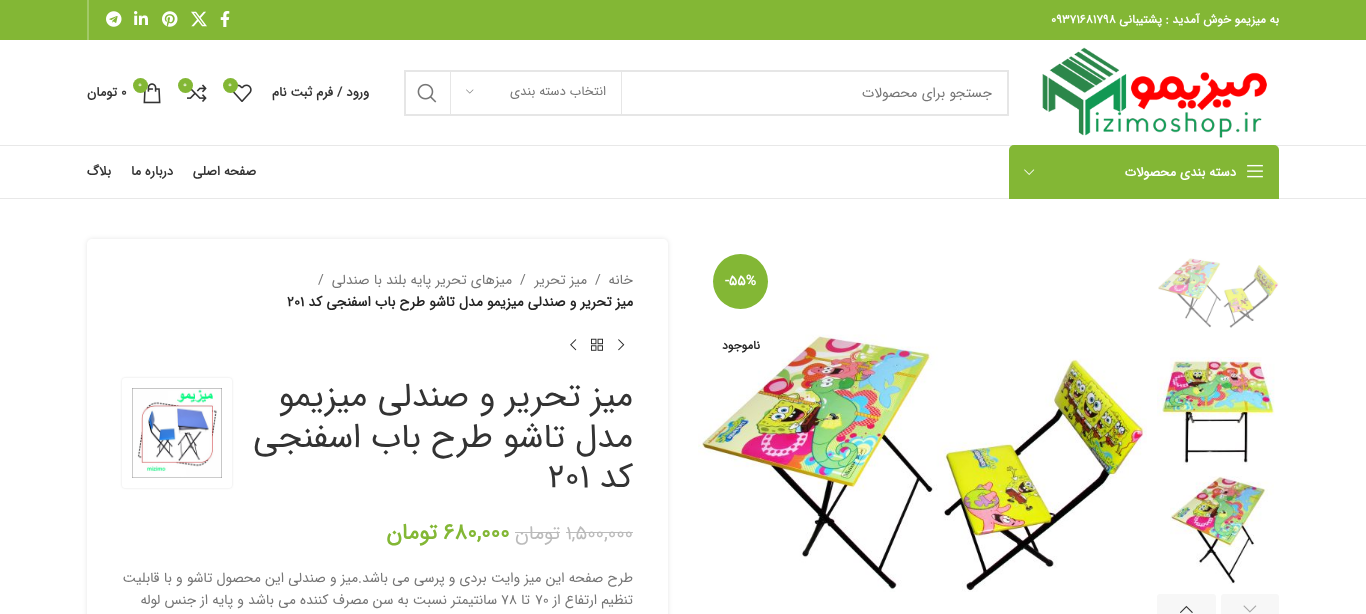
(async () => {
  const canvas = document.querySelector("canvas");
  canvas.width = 1366;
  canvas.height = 614;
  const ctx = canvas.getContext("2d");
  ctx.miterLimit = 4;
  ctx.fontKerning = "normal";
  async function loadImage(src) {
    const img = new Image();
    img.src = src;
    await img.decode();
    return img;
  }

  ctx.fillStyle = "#ffffff";
  ctx.fillRect(0, 0, 1366, 614);
  ctx.fillStyle = "#83b735";
  ctx.fillRect(0, 0, 1366, 40);
  ctx.drawImage(await loadImage("img/1.png"), 220, 11, 10, 16);
  ctx.drawImage(await loadImage("img/2.png"), 191, 11, 16, 16);
  ctx.drawImage(await loadImage("img/3.png"), 162, 11, 16, 16);
  ctx.drawImage(await loadImage("img/4.png"), 134, 11, 14, 14);
  ctx.drawImage(await loadImage("img/5.png"), 106, 11, 16, 16);
  ctx.fillStyle = "#a2c968";
  ctx.fillRect(87, 0, 2, 40);
  ctx.fillStyle = "#e8e8e8";
  ctx.fillRect(0, 145, 1366, 1);
  ctx.drawImage(await loadImage("img/6.png"), 1042, 47, 225, 91);
  ctx.strokeStyle = "#e6e6e6";
  ctx.lineWidth = 2;
  ctx.strokeRect(405, 71, 603, 44);
  ctx.fillStyle = "#e6e6e6";
  ctx.fillRect(621, 72, 1, 42);
  ctx.fillRect(450, 72, 1, 42);
  ctx.drawImage(await loadImage("img/7.png"), 466, 89, 8, 5);
  ctx.drawImage(await loadImage("img/8.png"), 417, 83, 20, 20);
  ctx.drawImage(await loadImage("img/9.png"), 232, 84, 20, 18);
  ctx.fillStyle = "#83b735";
  ctx.beginPath();
  ctx.arc(230.5, 85.5, 7.5, 0, Math.PI * 2);
  ctx.fill();
  ctx.drawImage(await loadImage("img/10.png"), 187, 84, 20, 18);
  ctx.beginPath();
  ctx.arc(185.5, 85.5, 7.5, 0, Math.PI * 2);
  ctx.fill();
  ctx.drawImage(await loadImage("img/11.png"), 143, 83, 18, 21);
  ctx.beginPath();
  ctx.arc(140.5, 85.5, 7.5, 0, Math.PI * 2);
  ctx.fill();
  ctx.fillStyle = "#e8e8e8";
  ctx.fillRect(0, 198, 1366, 1);
  ctx.fillStyle = "#83b735";
  ctx.beginPath();
  ctx.roundRect(1009, 145, 270, 54, [5, 5, 0, 0]);
  ctx.fill();
  ctx.drawImage(await loadImage("img/12.png"), 1247, 164, 16, 14);
  ctx.drawImage(await loadImage("img/13.png"), 1024, 169, 11, 6);
  ctx.drawImage(await loadImage("img/14.png"), 1158, 258, 121, 70);
  ctx.drawImage(await loadImage("img/15.png"), 1157, 357, 118, 108);
  ctx.drawImage(await loadImage("img/16.png"), 1170, 476, 104, 108);
  ctx.fillStyle = "#f7f7f7";
  ctx.beginPath();
  ctx.roundRect(1221, 594, 58, 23, 3);
  ctx.fill();
  ctx.drawImage(await loadImage("img/17.png"), 1243, 605, 14, 8);
  ctx.beginPath();
  ctx.roundRect(1157, 594, 59, 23, 3);
  ctx.fill();
  ctx.drawImage(await loadImage("img/18.png"), 1180, 605, 13, 8);
  ctx.fillStyle = "#83b735";
  ctx.beginPath();
  ctx.arc(740.5, 281.5, 27.5, 0, Math.PI * 2);
  ctx.fill();
  ctx.drawImage(await loadImage("img/19.png"), 698, 334, 449, 258);
  ctx.fillStyle = "rgba(0, 0, 0, 0.1)";
  ctx.filter = "blur(2.5px)";
  ctx.beginPath();
  ctx.roundRect(87, 239, 581, 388, 5);
  ctx.fill();
  ctx.filter = "none";
  ctx.fillStyle = "#ffffff";
  ctx.beginPath();
  ctx.roundRect(87, 239, 581, 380, 5);
  ctx.fill();
  ctx.drawImage(await loadImage("img/20.png"), 618, 339, 7, 12);
  ctx.drawImage(await loadImage("img/21.png"), 591, 338, 12, 13);
  ctx.drawImage(await loadImage("img/22.png"), 570, 339, 7, 12);
  ctx.fillStyle = "rgba(0, 0, 0, 0.12)";
  ctx.filter = "blur(1px)";
  ctx.beginPath();
  ctx.roundRect(122, 378, 110, 110, 3);
  ctx.fill();
  ctx.filter = "none";
  ctx.fillStyle = "#ffffff";
  ctx.beginPath();
  ctx.roundRect(122, 378, 110, 110, 3);
  ctx.fill();
  ctx.drawImage(await loadImage("img/23.png"), 132, 388, 90, 90);
  ctx.fillStyle = "#bbbbbb";
  ctx.fillRect(566, 532, 67, 1);
  ctx.fillRect(515, 532, 45, 1);
  ctx.direction = "rtl";
  ctx.font = "bold 12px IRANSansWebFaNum";
  ctx.fillStyle = "#ffffff";
  ctx.fillText("به میزیمو خوش آمدید : پشتیبانی", 1279, 23);
  ctx.direction = "ltr";
  ctx.fillText("09371681798", 1051, 23);
  ctx.direction = "rtl";
  ctx.font = "14px IRANSansWebFaNum";
  ctx.fillStyle = "#767676";
  ctx.fillText("جستجو برای محصولات", 992, 97);
  ctx.font = "13px IRANSansWebFaNum";
  ctx.fillText("انتخاب دسته بندی", 606, 95);
  ctx.direction = "ltr";
  ctx.font = "9px IRANSansWebFaNum";
  ctx.fillStyle = "#ffffff";
  for (const [text, x, y] of [
    ["0", 228, 87],
    ["0", 183, 87],
    ["0", 138, 87],
  ]) {
    ctx.fillText(text, x, y);
  }
  ctx.font = "bold 13px IRANSansWebFaNum";
  ctx.fillStyle = "#333333";
  ctx.fillText("0", 121, 96);
  ctx.direction = "rtl";
  ctx.fillText("تومان", 117, 96);
  ctx.fillText("ورود / فرم ثبت نام", 369, 96);
  ctx.fillStyle = "#ffffff";
  ctx.fillText("دسته بندی محصولات", 1236, 176);
  ctx.fillStyle = "#333333";
  for (const [text, x, y] of [
    ["صفحه اصلی", 256, 175],
    ["درباره ما", 173, 175],
    ["بلاگ", 111, 175],
  ]) {
    ctx.fillText(text, x, y);
  }
  ctx.direction = "ltr";
  ctx.font = "bold 14px IRANSansWebFaNum";
  ctx.fillStyle = "#ffffff";
  ctx.fillText("-55%", 725, 285);
  ctx.direction = "rtl";
  ctx.font = "bold 12px IRANSansWebFaNum";
  ctx.fillStyle = "#242424";
  ctx.fillText("ناموجود", 760, 349);
  ctx.font = "14px IRANSansWebFaNum";
  ctx.fillStyle = "#767676";
  ctx.fillText("خانه", 633, 284);
  ctx.direction = "ltr";
  ctx.fillText("/", 595, 284);
  ctx.direction = "rtl";
  ctx.fillText("میز تحریر", 587, 284);
  ctx.direction = "ltr";
  ctx.fillText("/", 520, 284);
  ctx.direction = "rtl";
  ctx.fillText("میزهای تحریر پایه بلند با صندلی", 512, 284);
  ctx.direction = "ltr";
  ctx.fillText("/", 318, 284);
  ctx.direction = "rtl";
  ctx.font = "bold 14px IRANSansWebFaNum";
  ctx.fillStyle = "#242424";
  ctx.fillText("میز تحریر و صندلی میزیمو مدل تاشو طرح باب اسفنجی کد", 633, 306);
  ctx.direction = "ltr";
  ctx.fillText("201", 287, 306);
  ctx.direction = "rtl";
  ctx.font = "34px IRANSansWebFaNum";
  ctx.fillStyle = "#333333";
  for (const [text, x, y] of [
    ["میز تحریر و صندلی میزیمو", 633, 406],
    ["مدل تاشو طرح باب اسفنجی", 633, 447],
    ["کد", 633, 487],
  ]) {
    ctx.fillText(text, x, y);
  }
  ctx.direction = "ltr";
  ctx.fillText("201", 548, 487);
  ctx.font = "19.5px IRANSansWebFaNum";
  ctx.fillStyle = "#bbbbbb";
  ctx.fillText("1,500,000", 566, 539);
  ctx.direction = "rtl";
  ctx.fillText("تومان", 560, 539);
  ctx.direction = "ltr";
  ctx.font = "bold 22px IRANSansWebFaNum";
  ctx.fillStyle = "#83b735";
  ctx.fillText("680,000", 443, 539);
  ctx.direction = "rtl";
  ctx.fillText("تومان", 437, 539);
  ctx.font = "14px IRANSansWebFaNum";
  ctx.fillStyle = "#767676";
  ctx.fillText("طرح صفحه این میز وایت بردی و پرسی می باشد.میز و صندلی این محصول تاشو و با قابلیت", 633, 582);
  ctx.fillText("تنظیم ارتفاع از", 633, 604);
  ctx.direction = "ltr";
  ctx.fillText("70", 535, 604);
  ctx.direction = "rtl";
  ctx.fillText("تا", 530, 604);
  ctx.direction = "ltr";
  ctx.fillText("78", 501, 604);
  ctx.direction = "rtl";
  ctx.fillText("سانتیمتر نسبت به سن مصرف کننده می باشد و پایه از جنس لوله", 497, 604);
})();
